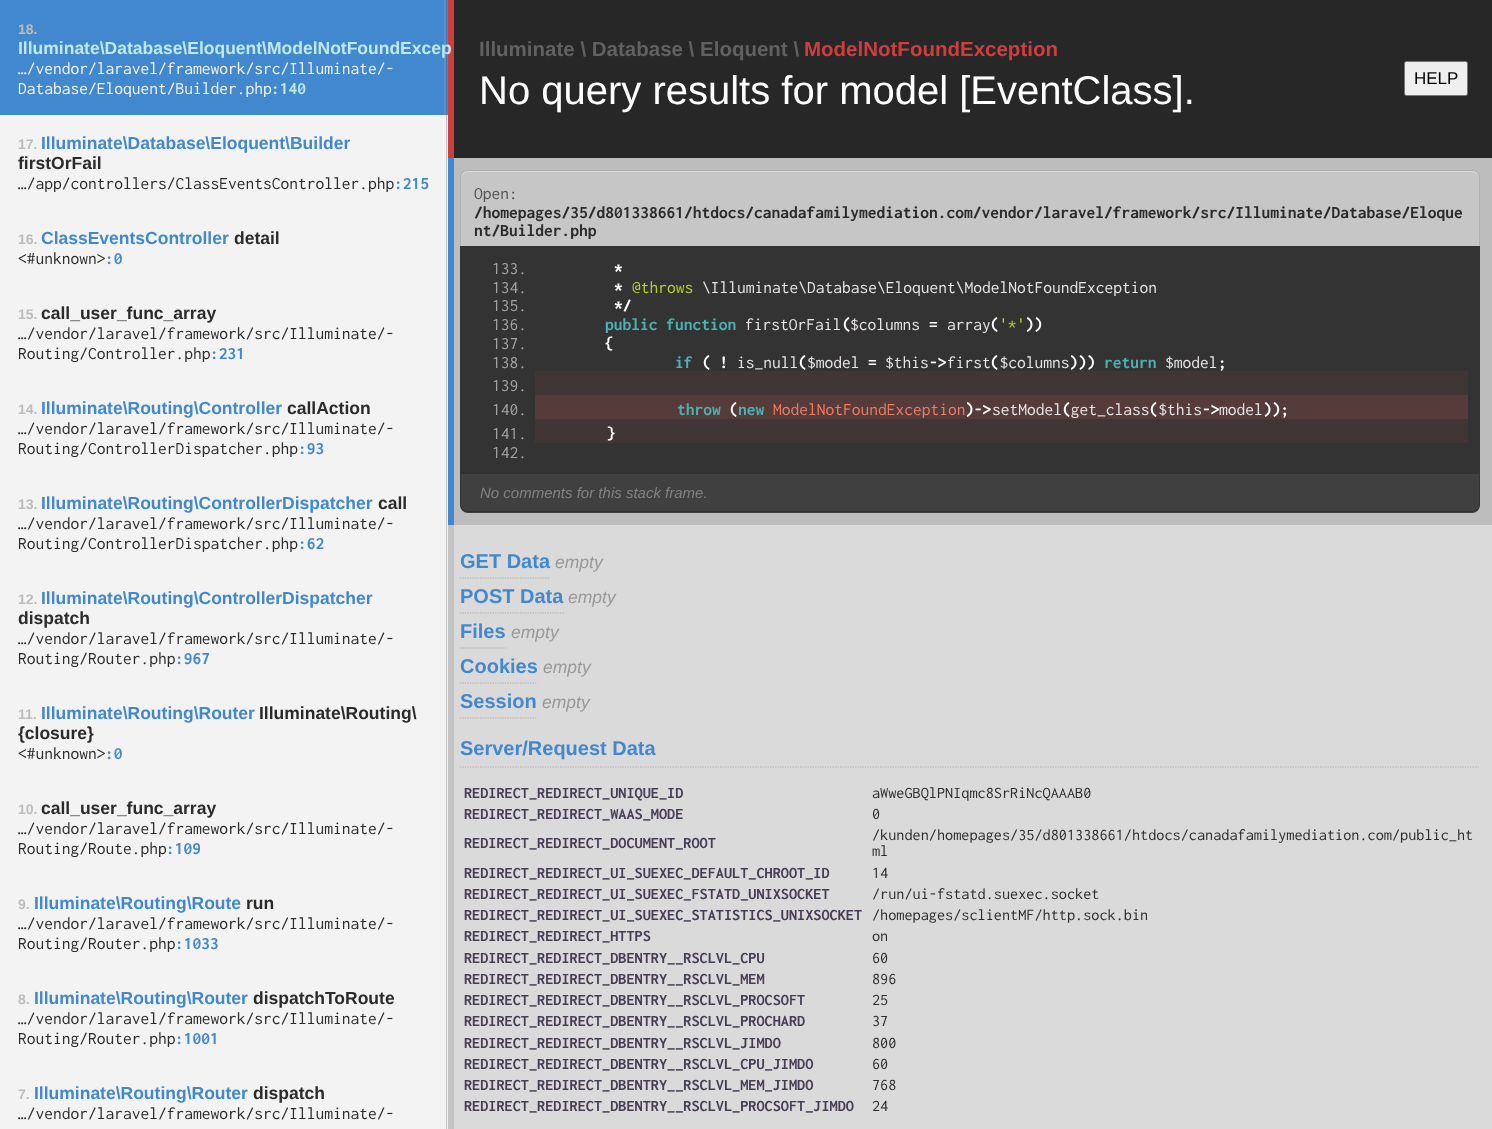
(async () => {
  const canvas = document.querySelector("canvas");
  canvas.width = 1492;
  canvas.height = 1129;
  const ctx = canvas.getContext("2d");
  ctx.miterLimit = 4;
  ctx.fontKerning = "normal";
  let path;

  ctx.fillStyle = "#4288ce";
  ctx.fillRect(0, 0, 1492, 1129);
  for (const [x, y, w, h, color] of [
    [444, 0, 2, 115, "#5594d3"],
    [446, 0, 1, 115, "#4476a9"],
    [0, 115, 448, 1014, "#f3f3f3"],
    [446, 115, 1, 1014, "#c2c2c2"],
    [454, 525, 1038, 604, "#dadada"],
    [454, 0, 1038, 158, "#272727"],
    [448, 0, 6, 158, "#cd3f3f"],
  ]) {
    ctx.fillStyle = color;
    ctx.fillRect(x, y, w, h);
  }
  ctx.fillStyle = "#efefef";
  ctx.beginPath();
  ctx.roundRect(1404.5, 61.5, 63, 34, 2);
  ctx.fill();
  ctx.strokeStyle = "#767676";
  ctx.stroke();
  ctx.fillStyle = "#bdbdbd";
  ctx.fillRect(454, 158, 1038, 367);
  ctx.fillStyle = "#c6c6c6";
  ctx.beginPath();
  ctx.roundRect(460, 170, 1020, 76, [8, 8, 0, 0]);
  ctx.fill();
  ctx.fillStyle = "#dadada";
  path = new Path2D("M468 172H1472C1476 172 1479 175 1479 179V177C1479 174 1476 171 1473 171H467C464 171 461 174 461 177V179C461 175 464 172 468 172Z");
  ctx.fill(path);
  ctx.fillStyle = "rgba(0, 0, 0, 0.1)";
  path = new Path2D("M468 170H1472C1477 170 1480 173 1480 178V246H460V178C460 173 463 170 468 170ZM468 171H1472C1476 171 1479 174 1479 178V246H461V178C461 174 464 171 468 171Z");
  ctx.fill(path, "evenodd");
  for (const [x, y, w, h, color] of [
    [460, 246, 1020, 228, "#333333"],
    [535, 371, 933, 24, "#413636"],
    [535, 395, 933, 24, "#563b3b"],
    [535, 419, 933, 24, "#413636"],
  ]) {
    ctx.fillStyle = color;
    ctx.fillRect(x, y, w, h);
  }
  ctx.fillStyle = "#404040";
  ctx.beginPath();
  ctx.roundRect(460, 474, 1020, 39, [0, 0, 8, 8]);
  ctx.fill();
  ctx.fillStyle = "rgba(0, 0, 0, 0.2)";
  path = new Path2D("M460 474H1480V505C1480 509 1477 512 1472 512H468C463 512 460 509 460 505ZM461 474H1479V505C1479 508 1476 511 1472 511H468C464 511 461 508 461 505Z");
  ctx.fill(path, "evenodd");
  ctx.fillStyle = "#c4c4c4";
  ctx.fillRect(448, 525, 6, 604);
  path = new Path2D("M460 578H550");
  ctx.strokeStyle = "#aeaeae";
  ctx.lineWidth = 1.2;
  ctx.setLineDash([1.25, 1.25]);
  ctx.stroke(path);
  path = new Path2D("M460 613H564");
  ctx.stroke(path);
  path = new Path2D("M460 648H506");
  ctx.stroke(path);
  path = new Path2D("M460 683H537.5");
  ctx.stroke(path);
  path = new Path2D("M460 718H537.5");
  ctx.stroke(path);
  path = new Path2D("M460 767H1480");
  ctx.stroke(path);
  ctx.font = "bold 14px Liberation Sans";
  ctx.fillStyle = "#bdbdbd";
  ctx.fillText("18.", 18, 34);
  ctx.font = "bold 17.5px Liberation Sans";
  ctx.fillStyle = "#bee9ea";
  ctx.fillText("Illuminate\\Database\\Eloquent\\ModelNotFoundExcep", 18, 54);
  ctx.font = "17.5px Inconsolata";
  ctx.fillStyle = "#f3f3f3";
  ctx.fillText("…/vendor/laravel/framework/src/Illuminate/-", 18, 74);
  ctx.fillText("Database/Eloquent/Builder.php", 18, 94);
  ctx.font = "bold 17.5px Inconsolata";
  ctx.fillStyle = "#bee9ea";
  ctx.fillText(":140", 271, 94);
  ctx.font = "bold 14px Liberation Sans";
  ctx.fillStyle = "#bdbdbd";
  ctx.fillText("17.", 18, 149);
  ctx.font = "bold 17.5px Liberation Sans";
  ctx.fillStyle = "#4288ce";
  ctx.fillText("Illuminate\\Database\\Eloquent\\Builder", 41, 149);
  ctx.fillStyle = "#2b2b2b";
  ctx.fillText("firstOrFail", 18, 169);
  ctx.font = "17.5px Inconsolata";
  ctx.fillText("…/app/controllers/ClassEventsController.php", 18, 189);
  ctx.font = "bold 17.5px Inconsolata";
  ctx.fillStyle = "#4288ce";
  ctx.fillText(":215", 394, 189);
  ctx.font = "bold 14px Liberation Sans";
  ctx.fillStyle = "#bdbdbd";
  ctx.fillText("16.", 18, 244);
  ctx.font = "bold 17.5px Liberation Sans";
  ctx.fillStyle = "#4288ce";
  ctx.fillText("ClassEventsController", 41, 244);
  ctx.fillStyle = "#2b2b2b";
  ctx.fillText("detail", 234, 244);
  ctx.font = "17.5px Inconsolata";
  ctx.fillText("<#unknown>", 18, 264);
  ctx.font = "bold 17.5px Inconsolata";
  ctx.fillStyle = "#4288ce";
  ctx.fillText(":0", 105, 264);
  ctx.font = "bold 14px Liberation Sans";
  ctx.fillStyle = "#bdbdbd";
  ctx.fillText("15.", 18, 319);
  ctx.font = "bold 17.5px Liberation Sans";
  ctx.fillStyle = "#2b2b2b";
  ctx.fillText("call_user_func_array", 41, 319);
  ctx.font = "17.5px Inconsolata";
  ctx.fillText("…/vendor/laravel/framework/src/Illuminate/-", 18, 339);
  ctx.fillText("Routing/Controller.php", 18, 359);
  ctx.font = "bold 17.5px Inconsolata";
  ctx.fillStyle = "#4288ce";
  ctx.fillText(":231", 210, 359);
  ctx.font = "bold 14px Liberation Sans";
  ctx.fillStyle = "#bdbdbd";
  ctx.fillText("14.", 18, 414);
  ctx.font = "bold 17.5px Liberation Sans";
  ctx.fillStyle = "#4288ce";
  ctx.fillText("Illuminate\\Routing\\Controller", 41, 414);
  ctx.fillStyle = "#2b2b2b";
  ctx.fillText("callAction", 287, 414);
  ctx.font = "17.5px Inconsolata";
  ctx.fillText("…/vendor/laravel/framework/src/Illuminate/-", 18, 434);
  ctx.fillText("Routing/ControllerDispatcher.php", 18, 454);
  ctx.font = "bold 17.5px Inconsolata";
  ctx.fillStyle = "#4288ce";
  ctx.fillText(":93", 298, 454);
  ctx.font = "bold 14px Liberation Sans";
  ctx.fillStyle = "#bdbdbd";
  ctx.fillText("13.", 18, 509);
  ctx.font = "bold 17.5px Liberation Sans";
  ctx.fillStyle = "#4288ce";
  ctx.fillText("Illuminate\\Routing\\ControllerDispatcher", 41, 509);
  ctx.fillStyle = "#2b2b2b";
  ctx.fillText("call", 378, 509);
  ctx.font = "17.5px Inconsolata";
  ctx.fillText("…/vendor/laravel/framework/src/Illuminate/-", 18, 529);
  ctx.fillText("Routing/ControllerDispatcher.php", 18, 549);
  ctx.font = "bold 17.5px Inconsolata";
  ctx.fillStyle = "#4288ce";
  ctx.fillText(":62", 298, 549);
  ctx.font = "bold 14px Liberation Sans";
  ctx.fillStyle = "#bdbdbd";
  ctx.fillText("12.", 18, 604);
  ctx.font = "bold 17.5px Liberation Sans";
  ctx.fillStyle = "#4288ce";
  ctx.fillText("Illuminate\\Routing\\ControllerDispatcher", 41, 604);
  ctx.fillStyle = "#2b2b2b";
  ctx.fillText("dispatch", 18, 624);
  ctx.font = "17.5px Inconsolata";
  ctx.fillText("…/vendor/laravel/framework/src/Illuminate/-", 18, 644);
  ctx.fillText("Routing/Router.php", 18, 664);
  ctx.font = "bold 17.5px Inconsolata";
  ctx.fillStyle = "#4288ce";
  ctx.fillText(":967", 175, 664);
  ctx.font = "bold 14px Liberation Sans";
  ctx.fillStyle = "#bdbdbd";
  ctx.fillText("11.", 18, 719);
  ctx.font = "bold 17.5px Liberation Sans";
  ctx.fillStyle = "#4288ce";
  ctx.fillText("Illuminate\\Routing\\Router", 41, 719);
  ctx.fillStyle = "#2b2b2b";
  ctx.fillText("Illuminate\\Routing\\", 259, 719);
  ctx.fillText("{closure}", 18, 739);
  ctx.font = "17.5px Inconsolata";
  ctx.fillText("<#unknown>", 18, 759);
  ctx.font = "bold 17.5px Inconsolata";
  ctx.fillStyle = "#4288ce";
  ctx.fillText(":0", 105, 759);
  ctx.font = "bold 14px Liberation Sans";
  ctx.fillStyle = "#bdbdbd";
  ctx.fillText("10.", 18, 814);
  ctx.font = "bold 17.5px Liberation Sans";
  ctx.fillStyle = "#2b2b2b";
  ctx.fillText("call_user_func_array", 41, 814);
  ctx.font = "17.5px Inconsolata";
  ctx.fillText("…/vendor/laravel/framework/src/Illuminate/-", 18, 834);
  ctx.fillText("Routing/Route.php", 18, 854);
  ctx.font = "bold 17.5px Inconsolata";
  ctx.fillStyle = "#4288ce";
  ctx.fillText(":109", 166, 854);
  ctx.font = "bold 14px Liberation Sans";
  ctx.fillStyle = "#bdbdbd";
  ctx.fillText("9.", 18, 909);
  ctx.font = "bold 17.5px Liberation Sans";
  ctx.fillStyle = "#4288ce";
  ctx.fillText("Illuminate\\Routing\\Route", 34, 909);
  ctx.fillStyle = "#2b2b2b";
  ctx.fillText("run", 246, 909);
  ctx.font = "17.5px Inconsolata";
  ctx.fillText("…/vendor/laravel/framework/src/Illuminate/-", 18, 929);
  ctx.fillText("Routing/Router.php", 18, 949);
  ctx.font = "bold 17.5px Inconsolata";
  ctx.fillStyle = "#4288ce";
  ctx.fillText(":1033", 175, 949);
  ctx.font = "bold 14px Liberation Sans";
  ctx.fillStyle = "#bdbdbd";
  ctx.fillText("8.", 18, 1004);
  ctx.font = "bold 17.5px Liberation Sans";
  ctx.fillStyle = "#4288ce";
  ctx.fillText("Illuminate\\Routing\\Router", 34, 1004);
  ctx.fillStyle = "#2b2b2b";
  ctx.fillText("dispatchToRoute", 253, 1004);
  ctx.font = "17.5px Inconsolata";
  ctx.fillText("…/vendor/laravel/framework/src/Illuminate/-", 18, 1024);
  ctx.fillText("Routing/Router.php", 18, 1044);
  ctx.font = "bold 17.5px Inconsolata";
  ctx.fillStyle = "#4288ce";
  ctx.fillText(":1001", 175, 1044);
  ctx.font = "bold 14px Liberation Sans";
  ctx.fillStyle = "#bdbdbd";
  ctx.fillText("7.", 18, 1099);
  ctx.font = "bold 17.5px Liberation Sans";
  ctx.fillStyle = "#4288ce";
  ctx.fillText("Illuminate\\Routing\\Router", 34, 1099);
  ctx.fillStyle = "#2b2b2b";
  ctx.fillText("dispatch", 253, 1099);
  ctx.font = "17.5px Inconsolata";
  ctx.fillText("…/vendor/laravel/framework/src/Illuminate/-", 18, 1119);
  ctx.font = "bold 20.5px Liberation Sans";
  ctx.fillStyle = "#616161";
  ctx.fillText("Illuminate \\ Database \\ Eloquent \\", 479, 56);
  ctx.fillStyle = "#cd3f3f";
  ctx.fillText("ModelNotFoundException", 804, 56);
  ctx.font = "40px Liberation Sans";
  ctx.fillStyle = "#ffffff";
  ctx.fillText("No query results for model [EventClass].", 479, 104);
  ctx.font = "17px Liberation Sans";
  ctx.fillStyle = "#000000";
  ctx.fillText("HELP", 1414, 84);
  ctx.font = "17.5px Inconsolata";
  ctx.fillStyle = "#525252";
  ctx.fillText("Open:", 474, 199);
  ctx.font = "bold 17.5px Inconsolata";
  ctx.fillStyle = "#2b2b2b";
  ctx.fillText("/homepages/35/d801338661/htdocs/canadafamilymediation.com/vendor/laravel/framework/src/Illuminate/Database/Eloque", 474, 218);
  ctx.fillText("nt/Builder.php", 474, 236);
  ctx.font = "17.5px Inconsolata";
  ctx.fillStyle = "#a5a5a5";
  ctx.fillText("133.", 492, 274);
  ctx.font = "bold 17.5px Inconsolata";
  ctx.fillStyle = "#ffffff";
  ctx.fillText("*", 614, 274);
  ctx.font = "17.5px Inconsolata";
  ctx.fillStyle = "#a5a5a5";
  ctx.fillText("134.", 492, 293);
  ctx.font = "bold 17.5px Inconsolata";
  ctx.fillStyle = "#ffffff";
  ctx.fillText("*", 614, 293);
  ctx.font = "17.5px Inconsolata";
  ctx.fillStyle = "#bcd42a";
  ctx.fillText("@throws", 632, 293);
  ctx.fillStyle = "#e9e4e5";
  ctx.fillText("\\Illuminate\\Database\\Eloquent\\ModelNotFoundException", 702, 293);
  ctx.fillStyle = "#a5a5a5";
  ctx.fillText("135.", 492, 311);
  ctx.font = "bold 17.5px Inconsolata";
  ctx.fillStyle = "#ffffff";
  ctx.fillText("*/", 614, 311);
  ctx.fillStyle = "#4bb1b1";
  ctx.fillText("public function", 605, 330);
  ctx.fillStyle = "#ffffff";
  ctx.fillText("(", 990, 330);
  ctx.fillText("))", 1025, 330);
  ctx.font = "17.5px Inconsolata";
  ctx.fillStyle = "#a5a5a5";
  ctx.fillText("136.", 492, 330);
  ctx.fillStyle = "#e9e4e5";
  ctx.fillText("firstOrFail $columns", 745, 330);
  ctx.font = "bold 17.5px Inconsolata";
  ctx.fillStyle = "#ffffff";
  ctx.fillText("(", 842, 330);
  ctx.fillText("=", 929, 330);
  ctx.font = "17.5px Inconsolata";
  ctx.fillStyle = "#e9e4e5";
  ctx.fillText("array", 947, 330);
  ctx.fillStyle = "#bcd42a";
  ctx.fillText("'*'", 999, 330);
  ctx.fillStyle = "#a5a5a5";
  ctx.fillText("137.", 492, 349);
  ctx.font = "bold 17.5px Inconsolata";
  ctx.fillStyle = "#ffffff";
  ctx.fillText("{", 605, 349);
  ctx.font = "17.5px Inconsolata";
  ctx.fillStyle = "#a5a5a5";
  ctx.fillText("138.", 492, 368);
  ctx.font = "bold 17.5px Inconsolata";
  ctx.fillStyle = "#4bb1b1";
  ctx.fillText("if", 675, 368);
  ctx.fillStyle = "#ffffff";
  ctx.fillText("( !", 702, 368);
  ctx.fillText(")))", 1069, 368);
  ctx.font = "17.5px Inconsolata";
  ctx.fillStyle = "#e9e4e5";
  ctx.fillText("is_null $model", 737, 368);
  ctx.font = "bold 17.5px Inconsolata";
  ctx.fillStyle = "#ffffff";
  ctx.fillText("(", 798, 368);
  ctx.fillText("=", 868, 368);
  ctx.font = "17.5px Inconsolata";
  ctx.fillStyle = "#e9e4e5";
  ctx.fillText("$this", 885, 368);
  ctx.font = "bold 17.5px Inconsolata";
  ctx.fillStyle = "#ffffff";
  ctx.fillText("->", 929, 368);
  ctx.font = "17.5px Inconsolata";
  ctx.fillStyle = "#e9e4e5";
  ctx.fillText("first $columns", 947, 368);
  ctx.font = "bold 17.5px Inconsolata";
  ctx.fillStyle = "#ffffff";
  ctx.fillText("(", 990, 368);
  ctx.fillStyle = "#4bb1b1";
  ctx.fillText("return", 1104, 368);
  ctx.font = "17.5px Inconsolata";
  ctx.fillStyle = "#e9e4e5";
  ctx.fillText("$model", 1165, 368);
  ctx.font = "bold 17.5px Inconsolata";
  ctx.fillStyle = "#ffffff";
  ctx.fillText(";", 1218, 368);
  ctx.font = "17.5px Inconsolata";
  ctx.fillStyle = "#a5a5a5";
  ctx.fillText("139.", 492, 391);
  ctx.font = "bold 17.5px Inconsolata";
  ctx.fillStyle = "#4bb1b1";
  ctx.fillText("throw", 677, 415);
  ctx.fillStyle = "#ffffff";
  ctx.fillText("(", 729, 415);
  ctx.font = "17.5px Inconsolata";
  ctx.fillStyle = "#ef7c61";
  ctx.fillText("ModelNotFoundException", 773, 415);
  ctx.font = "bold 17.5px Inconsolata";
  ctx.fillStyle = "#ffffff";
  ctx.fillText(")->", 965, 415);
  ctx.fillText("));", 1263, 415);
  ctx.font = "17.5px Inconsolata";
  ctx.fillStyle = "#a5a5a5";
  ctx.fillText("140.", 492, 415);
  ctx.font = "bold 17.5px Inconsolata";
  ctx.fillStyle = "#4bb1b1";
  ctx.fillText("new", 738, 415);
  ctx.font = "17.5px Inconsolata";
  ctx.fillStyle = "#e9e4e5";
  ctx.fillText("setModel get_class $this", 992, 415);
  ctx.font = "bold 17.5px Inconsolata";
  ctx.fillStyle = "#ffffff";
  for (const [text, x, y] of [
    ["(", 1149, 415],
    ["(", 1062, 415],
    ["->", 1202, 415],
  ]) {
    ctx.fillText(text, x, y);
  }
  ctx.font = "17.5px Inconsolata";
  ctx.fillStyle = "#e9e4e5";
  ctx.fillText("model", 1219, 415);
  ctx.fillStyle = "#a5a5a5";
  ctx.fillText("141.", 492, 439);
  ctx.font = "bold 17.5px Inconsolata";
  ctx.fillStyle = "#ffffff";
  ctx.fillText("}", 607, 439);
  ctx.font = "17.5px Inconsolata";
  ctx.fillStyle = "#a5a5a5";
  ctx.fillText("142.", 492, 458);
  ctx.font = "italic 15px Liberation Sans";
  ctx.fillStyle = "#828282";
  ctx.fillText("No comments for this stack frame.", 480, 498);
  ctx.font = "bold 20px Liberation Sans";
  ctx.fillStyle = "#4288ce";
  ctx.fillText("GET Data", 460, 568);
  ctx.font = "italic 17.5px Liberation Sans";
  ctx.fillStyle = "#999999";
  ctx.fillText("empty", 555, 568);
  ctx.font = "bold 20px Liberation Sans";
  ctx.fillStyle = "#4288ce";
  ctx.fillText("POST Data", 460, 603);
  ctx.font = "italic 17.5px Liberation Sans";
  ctx.fillStyle = "#999999";
  ctx.fillText("empty", 568, 603);
  ctx.font = "bold 20px Liberation Sans";
  ctx.fillStyle = "#4288ce";
  ctx.fillText("Files", 460, 638);
  ctx.font = "italic 17.5px Liberation Sans";
  ctx.fillStyle = "#999999";
  ctx.fillText("empty", 511, 638);
  ctx.font = "bold 20px Liberation Sans";
  ctx.fillStyle = "#4288ce";
  ctx.fillText("Cookies", 460, 673);
  ctx.font = "italic 17.5px Liberation Sans";
  ctx.fillStyle = "#999999";
  ctx.fillText("empty", 543, 673);
  ctx.font = "bold 20px Liberation Sans";
  ctx.fillStyle = "#4288ce";
  ctx.fillText("Session", 460, 708);
  ctx.font = "italic 17.5px Liberation Sans";
  ctx.fillStyle = "#999999";
  ctx.fillText("empty", 542, 708);
  ctx.font = "bold 20px Liberation Sans";
  ctx.fillStyle = "#4288ce";
  ctx.fillText("Server/Request Data", 460, 755);
  ctx.font = "bold 16.25px Inconsolata";
  ctx.fillStyle = "#463c54";
  ctx.fillText("REDIRECT_REDIRECT_UNIQUE_ID", 464, 798);
  ctx.font = "16.25px Inconsolata";
  ctx.fillStyle = "#2b2b2b";
  ctx.fillText("aWweGBQlPNIqmc8SrRiNcQAAAB0", 872, 798);
  ctx.font = "bold 16.25px Inconsolata";
  ctx.fillStyle = "#463c54";
  ctx.fillText("REDIRECT_REDIRECT_WAAS_MODE", 464, 819);
  ctx.font = "16.25px Inconsolata";
  ctx.fillStyle = "#2b2b2b";
  ctx.fillText("0", 872, 819);
  ctx.font = "bold 16.25px Inconsolata";
  ctx.fillStyle = "#463c54";
  ctx.fillText("REDIRECT_REDIRECT_DOCUMENT_ROOT", 464, 848);
  ctx.font = "16.25px Inconsolata";
  ctx.fillStyle = "#2b2b2b";
  ctx.fillText("/kunden/homepages/35/d801338661/htdocs/canadafamilymediation.com/public_ht", 872, 840);
  ctx.fillText("ml", 872, 856);
  ctx.font = "bold 16.25px Inconsolata";
  ctx.fillStyle = "#463c54";
  ctx.fillText("REDIRECT_REDIRECT_UI_SUEXEC_DEFAULT_CHROOT_ID", 464, 878);
  ctx.font = "16.25px Inconsolata";
  ctx.fillStyle = "#2b2b2b";
  ctx.fillText("14", 872, 878);
  ctx.font = "bold 16.25px Inconsolata";
  ctx.fillStyle = "#463c54";
  ctx.fillText("REDIRECT_REDIRECT_UI_SUEXEC_FSTATD_UNIXSOCKET", 464, 899);
  ctx.font = "16.25px Inconsolata";
  ctx.fillStyle = "#2b2b2b";
  ctx.fillText("/run/ui-fstatd.suexec.socket", 872, 899);
  ctx.font = "bold 16.25px Inconsolata";
  ctx.fillStyle = "#463c54";
  ctx.fillText("REDIRECT_REDIRECT_UI_SUEXEC_STATISTICS_UNIXSOCKET", 464, 920);
  ctx.font = "16.25px Inconsolata";
  ctx.fillStyle = "#2b2b2b";
  ctx.fillText("/homepages/sclientMF/http.sock.bin", 872, 920);
  ctx.font = "bold 16.25px Inconsolata";
  ctx.fillStyle = "#463c54";
  ctx.fillText("REDIRECT_REDIRECT_HTTPS", 464, 941);
  ctx.font = "16.25px Inconsolata";
  ctx.fillStyle = "#2b2b2b";
  ctx.fillText("on", 872, 941);
  ctx.font = "bold 16.25px Inconsolata";
  ctx.fillStyle = "#463c54";
  ctx.fillText("REDIRECT_REDIRECT_DBENTRY__RSCLVL_CPU", 464, 963);
  ctx.font = "16.25px Inconsolata";
  ctx.fillStyle = "#2b2b2b";
  ctx.fillText("60", 872, 963);
  ctx.font = "bold 16.25px Inconsolata";
  ctx.fillStyle = "#463c54";
  ctx.fillText("REDIRECT_REDIRECT_DBENTRY__RSCLVL_MEM", 464, 984);
  ctx.font = "16.25px Inconsolata";
  ctx.fillStyle = "#2b2b2b";
  ctx.fillText("896", 872, 984);
  ctx.font = "bold 16.25px Inconsolata";
  ctx.fillStyle = "#463c54";
  ctx.fillText("REDIRECT_REDIRECT_DBENTRY__RSCLVL_PROCSOFT", 464, 1005);
  ctx.font = "16.25px Inconsolata";
  ctx.fillStyle = "#2b2b2b";
  ctx.fillText("25", 872, 1005);
  ctx.font = "bold 16.25px Inconsolata";
  ctx.fillStyle = "#463c54";
  ctx.fillText("REDIRECT_REDIRECT_DBENTRY__RSCLVL_PROCHARD", 464, 1026);
  ctx.font = "16.25px Inconsolata";
  ctx.fillStyle = "#2b2b2b";
  ctx.fillText("37", 872, 1026);
  ctx.font = "bold 16.25px Inconsolata";
  ctx.fillStyle = "#463c54";
  ctx.fillText("REDIRECT_REDIRECT_DBENTRY__RSCLVL_JIMDO", 464, 1048);
  ctx.font = "16.25px Inconsolata";
  ctx.fillStyle = "#2b2b2b";
  ctx.fillText("800", 872, 1048);
  ctx.font = "bold 16.25px Inconsolata";
  ctx.fillStyle = "#463c54";
  ctx.fillText("REDIRECT_REDIRECT_DBENTRY__RSCLVL_CPU_JIMDO", 464, 1069);
  ctx.font = "16.25px Inconsolata";
  ctx.fillStyle = "#2b2b2b";
  ctx.fillText("60", 872, 1069);
  ctx.font = "bold 16.25px Inconsolata";
  ctx.fillStyle = "#463c54";
  ctx.fillText("REDIRECT_REDIRECT_DBENTRY__RSCLVL_MEM_JIMDO", 464, 1090);
  ctx.font = "16.25px Inconsolata";
  ctx.fillStyle = "#2b2b2b";
  ctx.fillText("768", 872, 1090);
  ctx.font = "bold 16.25px Inconsolata";
  ctx.fillStyle = "#463c54";
  ctx.fillText("REDIRECT_REDIRECT_DBENTRY__RSCLVL_PROCSOFT_JIMDO", 464, 1111);
  ctx.font = "16.25px Inconsolata";
  ctx.fillStyle = "#2b2b2b";
  ctx.fillText("24", 872, 1111);
})();
